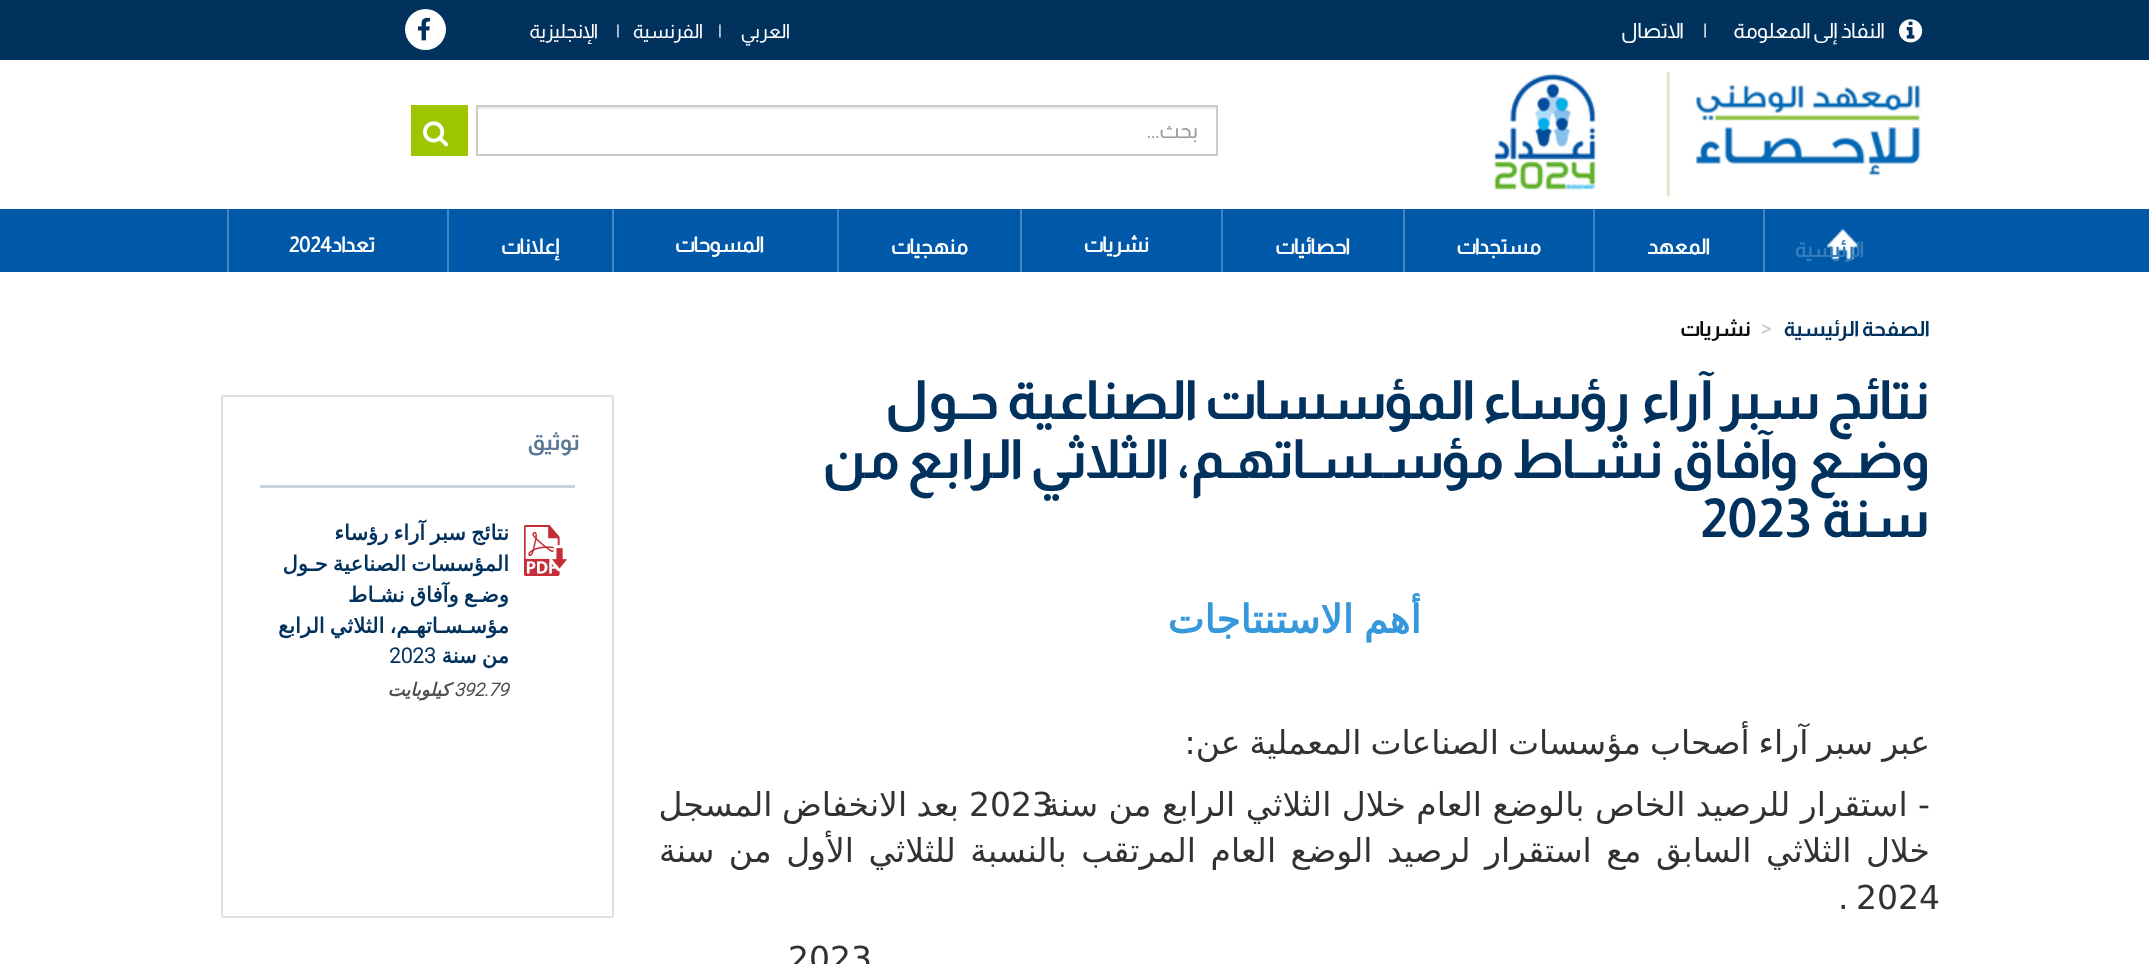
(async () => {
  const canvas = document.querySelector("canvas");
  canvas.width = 2149;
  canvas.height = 964;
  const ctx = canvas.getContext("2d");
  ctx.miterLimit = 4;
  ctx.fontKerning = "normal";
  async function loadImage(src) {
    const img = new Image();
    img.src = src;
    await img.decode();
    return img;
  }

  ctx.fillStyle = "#ffffff";
  ctx.fillRect(0, 0, 2149, 964);
  ctx.fillStyle = "#01315d";
  ctx.fillRect(0, 0, 2149, 60);
  ctx.drawImage(await loadImage("img/1.png"), 1899, 19, 24, 24);
  ctx.fillStyle = "#ffffff";
  ctx.beginPath();
  ctx.arc(425.5, 29.5, 20.5, 0, Math.PI * 2);
  ctx.fill();
  ctx.drawImage(await loadImage("img/2.png"), 418, 17, 13, 24);
  ctx.drawImage(await loadImage("img/3.png"), 1493, 72, 428, 125);
  ctx.fillStyle = "#ececec";
  ctx.fillRect(477, 107, 740, 2);
  ctx.strokeStyle = "#cccccc";
  ctx.lineWidth = 2;
  ctx.strokeRect(477, 106, 740, 49);
  ctx.fillStyle = "#9dc600";
  ctx.fillRect(411, 105, 57, 51);
  ctx.drawImage(await loadImage("img/4.png"), 423, 121, 26, 26);
  ctx.fillStyle = "#0058a9";
  ctx.fillRect(0, 209, 2149, 63);
  ctx.fillStyle = "#4585bf";
  ctx.fillRect(1763, 209, 2, 63);
  ctx.drawImage(await loadImage("img/5.png"), 1827, 229, 32, 31);
  for (const [x, y, w, h, color] of [
    [1593, 209, 2, 63, "#4585bf"],
    [1403, 209, 2, 63, "#4585bf"],
    [1221, 209, 2, 63, "#4585bf"],
    [1020, 209, 2, 63, "#4585bf"],
    [837, 209, 2, 63, "#4585bf"],
    [612, 209, 2, 63, "#4585bf"],
    [447, 209, 2, 63, "#4585bf"],
    [227, 209, 2, 63, "#4585bf"],
  ]) {
    ctx.fillStyle = color;
    ctx.fillRect(x, y, w, h);
  }
  ctx.beginPath();
  ctx.roundRect(222, 396, 391, 521, 2);
  ctx.strokeStyle = "#d9e0e7";
  ctx.stroke();
  ctx.fillStyle = "#cad4dd";
  ctx.fillRect(260, 485, 315, 3);
  ctx.drawImage(await loadImage("img/6.png"), 524, 525, 43, 51);
  ctx.direction = "rtl";
  ctx.font = "21px Almarai";
  ctx.fillStyle = "#ffffff";
  ctx.fillText("النفاذ إلى المعلومة", 1885, 38);
  ctx.direction = "ltr";
  ctx.fillText("|", 1703, 38);
  ctx.direction = "rtl";
  ctx.fillText("الاتصال", 1684, 38);
  ctx.font = "19.5px Almarai";
  ctx.fillText("العربي", 790, 38);
  ctx.direction = "ltr";
  ctx.fillText("|", 718, 38);
  ctx.direction = "rtl";
  ctx.fillText("الفرنسية", 703, 38);
  ctx.direction = "ltr";
  ctx.fillText("|", 616, 38);
  ctx.direction = "rtl";
  ctx.fillText("الإنجليزية", 598, 38);
  ctx.font = "21px Almarai";
  ctx.fillStyle = "#999999";
  ctx.fillText("بحث...", 1198, 138);
  ctx.font = "bold 21px Almarai";
  ctx.fillStyle = "#367cbb";
  ctx.fillText("الرئيسية", 1864, 257);
  ctx.fillStyle = "#ffffff";
  for (const [text, x, y] of [
    ["المعهد", 1710, 254],
    ["مستجدات", 1541, 254],
    ["احصائيات", 1350, 254],
    ["نشريات", 1149, 252],
    ["منهجيات", 968, 254],
    ["المسوحات", 764, 252],
    ["إعلانات", 559, 254],
    ["تعداد", 375, 252],
  ]) {
    ctx.fillText(text, x, y);
  }
  ctx.direction = "ltr";
  ctx.fillText("2024", 289, 252);
  ctx.direction = "rtl";
  ctx.font = "bold 21px 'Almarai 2'";
  ctx.fillStyle = "#01315d";
  ctx.fillText("الصفحة الرئيسية", 1930, 336);
  ctx.direction = "ltr";
  ctx.fillStyle = "#cccccc";
  ctx.fillText(">", 1761, 336);
  ctx.direction = "rtl";
  ctx.fillStyle = "#0c0c0c";
  ctx.fillText("نشريات", 1751, 336);
  ctx.font = "bold 54px 'Almarai 2'";
  ctx.fillStyle = "#01315d";
  for (const [text, x, y] of [
    ["نتائج سبر آراء رؤساء المؤسسات الصناعية حـول", 1930, 419],
    ["وضـع وآفاق نشـاط مؤسـسـاتهـم، الثلاثي الرابع من", 1930, 478],
    ["سنة", 1930, 537],
  ]) {
    ctx.fillText(text, x, y);
  }
  ctx.direction = "ltr";
  ctx.fillText("2023", 1701, 537);
  ctx.wordSpacing = "-2px";
  ctx.direction = "rtl";
  ctx.font = "bold 39px DejaVu Sans";
  ctx.fillStyle = "#3498db";
  ctx.fillText("أهم الاستنتاجات", 1421, 633);
  ctx.wordSpacing = "-1.5px";
  ctx.font = "33px DejaVu Sans";
  ctx.fillStyle = "#323232";
  ctx.fillText("عبر سبر آراء أصحاب مؤسسات الصناعات المعملية عن:", 1930, 754);
  ctx.wordSpacing = "0px";
  ctx.direction = "ltr";
  ctx.fillText("2023", 969, 816);
  ctx.direction = "rtl";
  ctx.fillText("- استقرار للرصيد الخاص بالوضع العام خلال الثلاثي الرابع من سنة", 1930, 816);
  ctx.wordSpacing = "-1px";
  ctx.fillText("بعد الانخفاض المسجل", 959, 816);
  ctx.wordSpacing = "4px";
  ctx.fillText("خلال الثلاثي السابق مع استقرار لرصيد الوضع العام المرتقب بالنسبة للثلاثي الأول من سنة", 1930, 862);
  ctx.wordSpacing = "0px";
  ctx.direction = "ltr";
  for (const [text, x, y] of [
    ["2024", 1856, 909],
    [".", 1838, 909],
    ["2023", 788, 970],
  ]) {
    ctx.fillText(text, x, y);
  }
  ctx.letterSpacing = "1px";
  ctx.direction = "rtl";
  ctx.font = "bold 22.5px 'Almarai 2'";
  ctx.fillStyle = "#5a7996";
  ctx.fillText("توثيق", 580, 450);
  ctx.letterSpacing = "0px";
  ctx.wordSpacing = "-1.5px";
  ctx.font = "bold 21px DejaVu Sans";
  ctx.fillStyle = "#01315d";
  for (const [text, x, y] of [
    ["نتائج سبر آراء رؤساء", 509, 540],
    ["المؤسسات الصناعية حـول", 509, 571],
    ["وضـع وآفاق نشـاط", 509, 602],
    ["مؤسـسـاتهـم، الثلاثي الرابع", 509, 633],
    ["من سنة", 509, 663],
  ]) {
    ctx.fillText(text, x, y);
  }
  ctx.wordSpacing = "0px";
  ctx.direction = "ltr";
  ctx.font = "bold 21px Roboto";
  ctx.fillText("2023", 389, 663);
  ctx.font = "italic bold 18px Roboto";
  ctx.fillStyle = "#4f4f4f";
  ctx.fillText("392.79", 454, 696);
  ctx.direction = "rtl";
  ctx.font = "italic bold 18px DejaVu Sans";
  ctx.fillText("كيلوبايت", 450, 696);
})();
